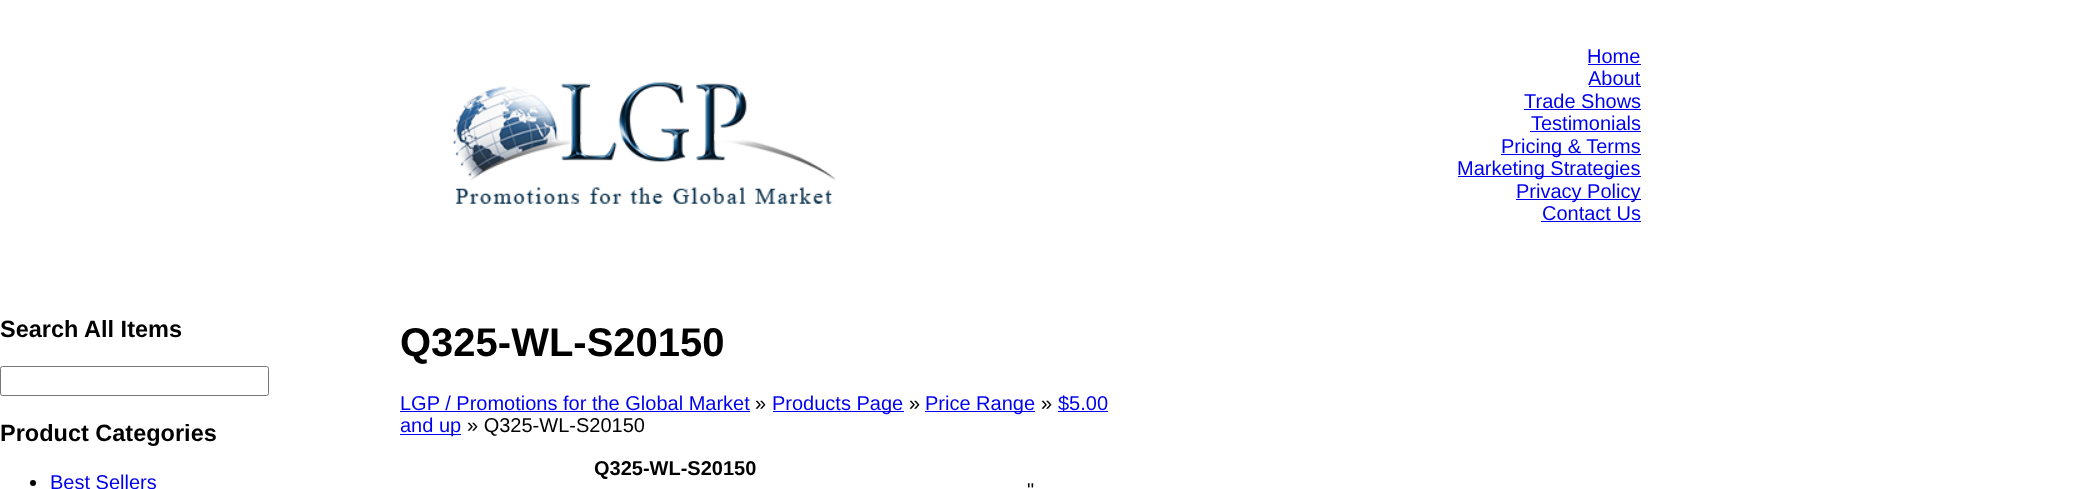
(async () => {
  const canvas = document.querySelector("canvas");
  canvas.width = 2093;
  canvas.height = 489;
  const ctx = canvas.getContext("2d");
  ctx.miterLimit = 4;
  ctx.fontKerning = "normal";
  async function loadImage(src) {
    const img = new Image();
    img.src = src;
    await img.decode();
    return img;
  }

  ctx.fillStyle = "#ffffff";
  ctx.fillRect(0, 0, 2093, 489);
  ctx.drawImage(await loadImage("img/1.png"), 453, 82, 382, 122);
  for (const [x, y, w, h, color] of [
    [1588, 64, 53, 1, "#0000ee"],
    [1589, 86, 52, 1, "#0000ee"],
    [1524, 109, 117, 1, "#0000ee"],
    [1530, 131, 111, 1, "#0000ee"],
    [1501, 154, 140, 1, "#0000ee"],
    [1458, 176, 183, 1, "#0000ee"],
    [1516, 199, 125, 1, "#0000ee"],
    [1541, 221, 100, 1, "#0000ee"],
  ]) {
    ctx.fillStyle = color;
    ctx.fillRect(x, y, w, h);
  }
  ctx.beginPath();
  ctx.roundRect(0.5, 366.5, 268, 29, 2);
  ctx.strokeStyle = "#767676";
  ctx.stroke();
  ctx.fillStyle = "#000000";
  ctx.beginPath();
  ctx.arc(33, 483, 3, 0, Math.PI * 2);
  ctx.fill();
  for (const [x, y, w, h, color] of [
    [400, 411, 350, 1, "#0000ee"],
    [773, 411, 131, 1, "#0000ee"],
    [925, 411, 110, 1, "#0000ee"],
    [1058, 411, 50, 1, "#0000ee"],
    [400, 434, 61, 1, "#0000ee"],
  ]) {
    ctx.fillStyle = color;
    ctx.fillRect(x, y, w, h);
  }
  ctx.font = "20px Liberation Sans";
  for (const [text, x, y] of [
    ["Home", 1587, 63],
    ["About", 1588, 85],
    ["Trade Shows", 1524, 108],
    ["Testimonials", 1531, 130],
    ["Pricing & Terms", 1501, 153],
    ["Marketing Strategies", 1457, 175],
    ["Privacy Policy", 1516, 198],
    ["Contact Us", 1542, 220],
  ]) {
    ctx.fillText(text, x, y);
  }
  ctx.font = "bold 23.5px Liberation Sans";
  ctx.fillStyle = "#000000";
  ctx.fillText("Search All Items", 0, 337);
  ctx.fillText("Product Categories", 0, 441);
  ctx.font = "20px Liberation Sans";
  ctx.fillStyle = "#0000ee";
  ctx.fillText("Best Sellers", 50, 489);
  ctx.font = "bold 40px Liberation Sans";
  ctx.fillStyle = "#000000";
  ctx.fillText("Q325-WL-S20150", 400, 356);
  ctx.font = "20px Liberation Sans";
  ctx.fillStyle = "#0000ee";
  ctx.fillText("LGP / Promotions for the Global Market", 400, 410);
  ctx.fillStyle = "#000000";
  ctx.fillText("»", 755, 410);
  ctx.fillStyle = "#0000ee";
  ctx.fillText("Products Page", 772, 410);
  ctx.fillStyle = "#000000";
  ctx.fillText("»", 909, 410);
  ctx.fillStyle = "#0000ee";
  ctx.fillText("Price Range", 925, 410);
  ctx.fillStyle = "#000000";
  ctx.fillText("»", 1041, 410);
  ctx.fillStyle = "#0000ee";
  ctx.fillText("$5.00", 1058, 410);
  ctx.fillText("and up", 400, 432);
  ctx.fillStyle = "#000000";
  ctx.fillText("» Q325-WL-S20150", 467, 432);
  ctx.font = "bold 20px Liberation Sans";
  ctx.fillText("Q325-WL-S20150", 594, 475);
  ctx.font = "20px Liberation Sans";
  ctx.fillText("\"", 1027, 497);
})();
